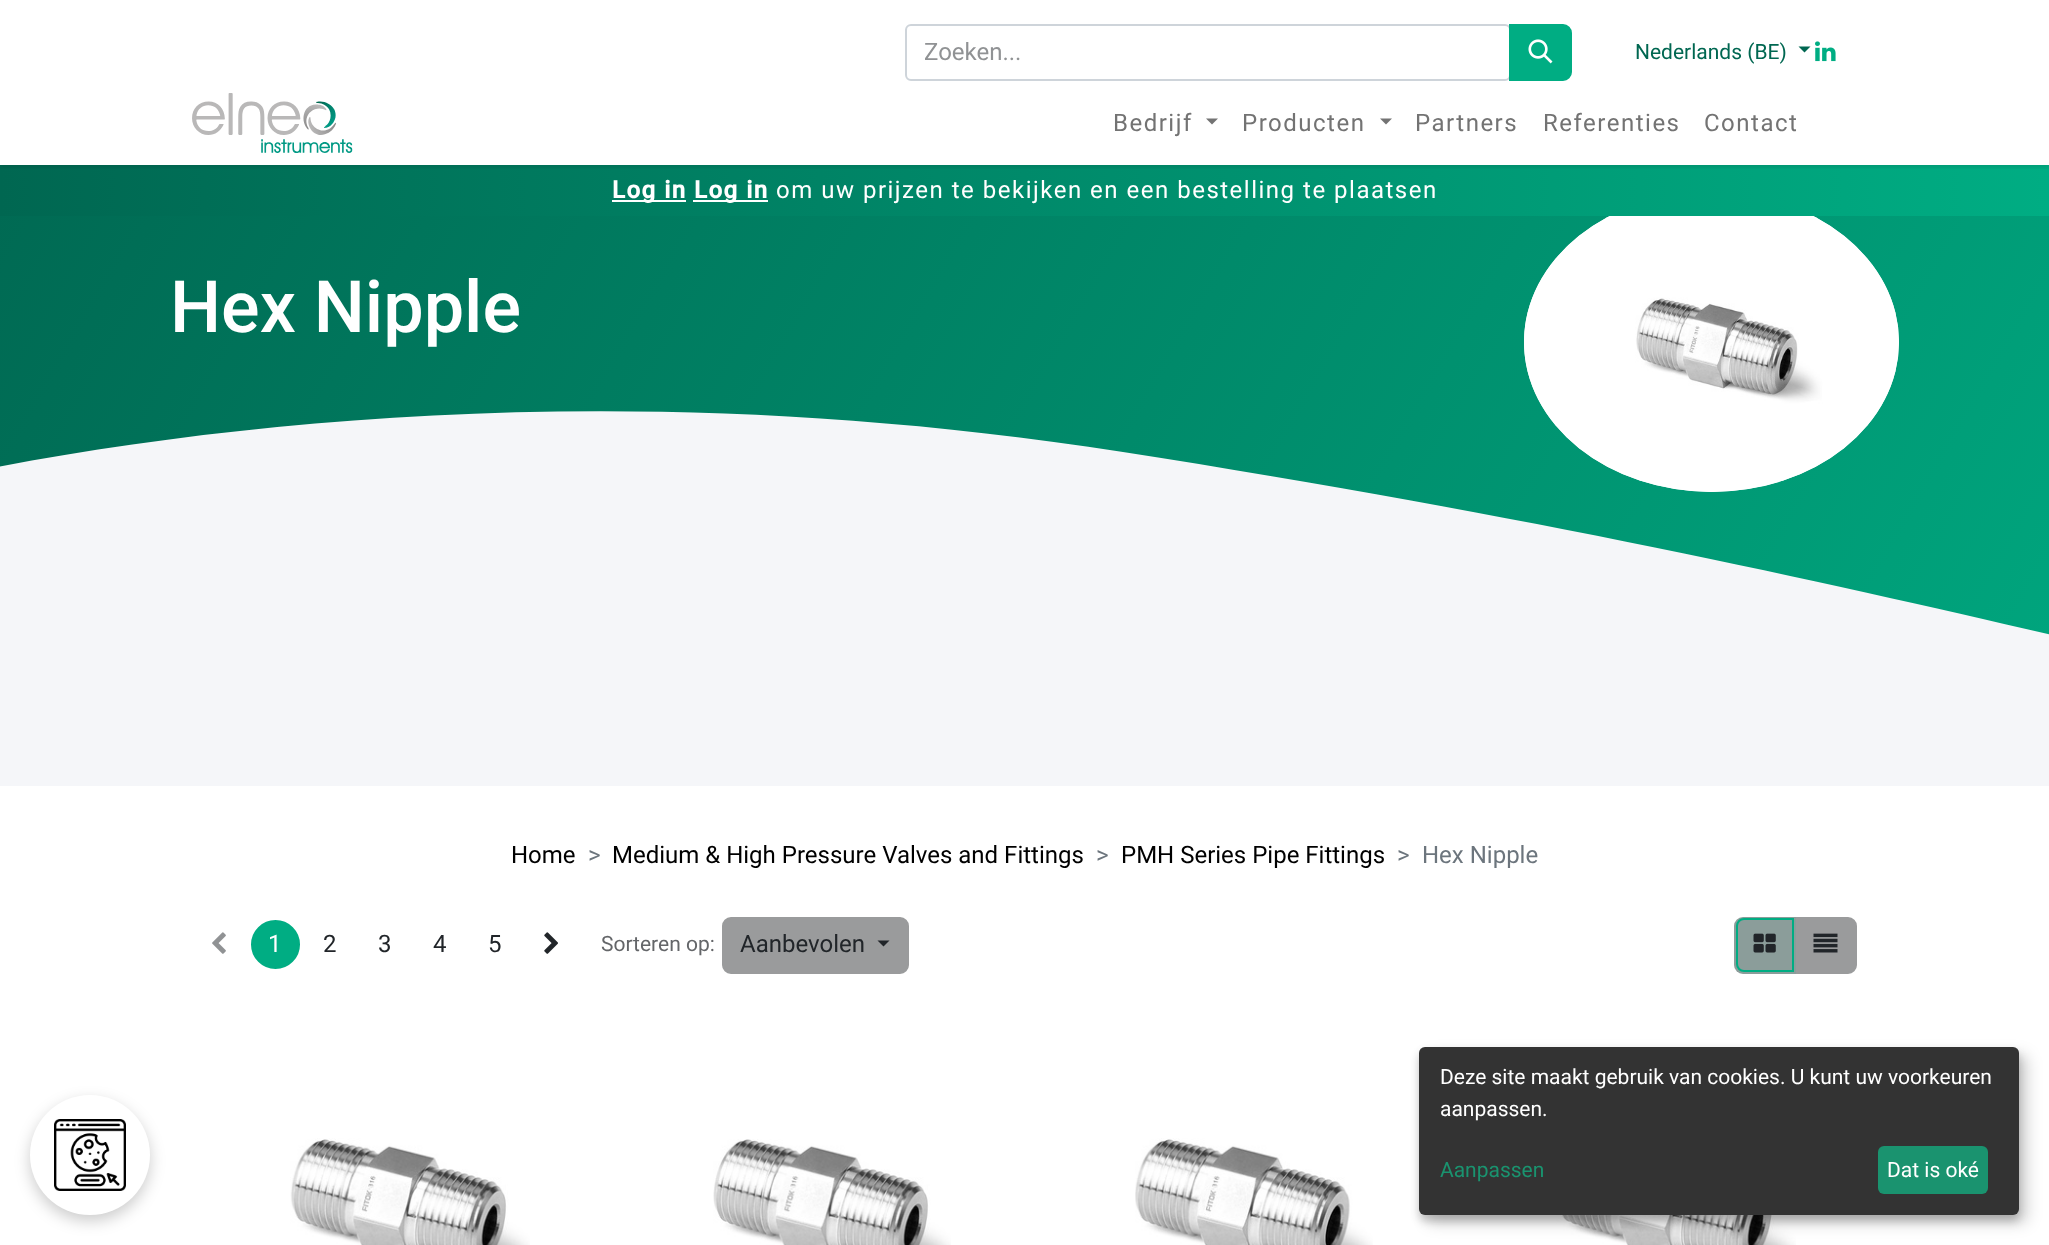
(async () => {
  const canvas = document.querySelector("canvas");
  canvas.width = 2049;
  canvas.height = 1245;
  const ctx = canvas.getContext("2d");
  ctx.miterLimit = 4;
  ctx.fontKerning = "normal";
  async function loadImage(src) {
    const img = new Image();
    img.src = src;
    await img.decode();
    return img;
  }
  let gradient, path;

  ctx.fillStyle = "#ffffff";
  ctx.fillRect(0, 0, 2049, 1245);
  gradient = ctx.createLinearGradient(-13, 23, 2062, 1222);
  gradient.addColorStop(0, "#006751");
  gradient.addColorStop(1, "#00ad83");
  ctx.fillStyle = gradient;
  ctx.fillRect(0, 216, 2049, 419);
  ctx.fillStyle = "#f5f6f9";
  path = new Path2D("M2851 751C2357 758 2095 604 1123 452C151 300-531 622-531 622V786H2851Z");
  ctx.fill(path);
  ctx.fillStyle = "#ffffff";
  ctx.beginPath();
  ctx.ellipse(1711.5, 342, 187.5, 150, 0, 0, Math.PI * 2);
  ctx.fill();
  gradient = ctx.createLinearGradient(0, 191, 2049, 190);
  gradient.addColorStop(0, "#006751");
  gradient.addColorStop(1, "#00ad83");
  ctx.fillStyle = gradient;
  ctx.fillRect(0, 165, 2049, 51);
  ctx.save();
  ctx.beginPath();
  ctx.rect(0, 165, 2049, 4);
  ctx.clip();
  ctx.fillStyle = "rgba(0, 0, 0, 0.1)";
  ctx.filter = "blur(2px)";
  ctx.beginPath();
  ctx.rect(0, 2, 2049, 165);
  ctx.fill();
  ctx.filter = "none";
  ctx.restore();
  ctx.beginPath();
  ctx.roundRect(906, 25, 604, 55, 5);
  ctx.strokeStyle = "#ced4da";
  ctx.lineWidth = 2;
  ctx.stroke();
  ctx.fillStyle = "#00ad83";
  ctx.beginPath();
  ctx.roundRect(1510, 25, 61, 55, [0, 8, 8, 0]);
  ctx.fill();
  ctx.strokeStyle = "#00ad83";
  ctx.stroke();
  ctx.drawImage(await loadImage("img/1.png"), 1528, 39, 25, 25);
  ctx.fillStyle = "#006751";
  path = new Path2D("M1798.5 46.5H1810.5L1804.5 52.5Z");
  ctx.fill(path);
  ctx.drawImage(await loadImage("img/2.png"), 1815, 41, 21, 21);
  ctx.drawImage(await loadImage("img/3.png"), 192, 93, 161, 60);
  ctx.fillStyle = "#737373";
  path = new Path2D("M1206 118.5H1218L1212 124.5Z");
  ctx.fill(path);
  path = new Path2D("M1380 118.5H1392L1386 124.5Z");
  ctx.fill(path);
  ctx.fillStyle = "#ffffff";
  ctx.fillRect(612, 200, 74, 2);
  ctx.fillRect(693, 200, 75, 2);
  ctx.drawImage(await loadImage("img/4.png"), 1524, 216, 375, 276);
  ctx.drawImage(await loadImage("img/5.png"), 212, 932, 14, 22);
  ctx.fillStyle = "#00ad83";
  ctx.beginPath();
  ctx.arc(275.5, 944.5, 23.5, 0, Math.PI * 2);
  ctx.fill();
  ctx.stroke();
  ctx.drawImage(await loadImage("img/6.png"), 544, 932, 14, 22);
  ctx.fillStyle = "#9a9b9c";
  ctx.beginPath();
  ctx.roundRect(723, 918, 185, 55, 8);
  ctx.fill();
  ctx.strokeStyle = "#9a9b9c";
  ctx.stroke();
  ctx.fillStyle = "#212529";
  path = new Path2D("M877.5 940.5H889.5L883.5 946.5Z");
  ctx.fill(path);
  ctx.fillStyle = "#9a9b9c";
  ctx.beginPath();
  ctx.roundRect(1795, 918, 61, 55, [0, 8, 8, 0]);
  ctx.fill();
  ctx.stroke();
  ctx.fillStyle = "#8b9d9a";
  ctx.beginPath();
  ctx.roundRect(1734, 917, 62, 57, [9, 0, 0, 9]);
  ctx.fill();
  ctx.beginPath();
  ctx.roundRect(1737, 919, 56, 52, [7, 0, 0, 7]);
  ctx.strokeStyle = "#00ad83";
  ctx.stroke();
  ctx.drawImage(await loadImage("img/7.png"), 1753, 933, 23, 20);
  ctx.drawImage(await loadImage("img/8.png"), 1813, 933, 25, 20);
  ctx.drawImage(await loadImage("img/9.png"), 290, 1138, 240, 107);
  ctx.drawImage(await loadImage("img/10.png"), 713, 1139, 238, 106);
  ctx.drawImage(await loadImage("img/11.png"), 1135, 1138, 238, 107);
  ctx.drawImage(await loadImage("img/12.png"), 1556, 1215, 240, 30);
  ctx.fillStyle = "rgba(0, 0, 0, 0.2)";
  ctx.filter = "blur(7.5px)";
  ctx.beginPath();
  ctx.roundRect(30, 1101, 120, 120, 60);
  ctx.fill();
  ctx.filter = "none";
  ctx.fillStyle = "#ffffff";
  ctx.beginPath();
  ctx.arc(90, 1155, 60, 0, Math.PI * 2);
  ctx.fill();
  ctx.drawImage(await loadImage("img/13.png"), 54, 1119, 72, 72);
  ctx.fillStyle = "rgba(0, 0, 0, 0.19)";
  ctx.filter = "blur(7.5px)";
  ctx.beginPath();
  ctx.roundRect(1427, 1055, 600, 168, 6);
  ctx.fill();
  ctx.filter = "none";
  ctx.fillStyle = "rgba(0, 0, 0, 0.2)";
  ctx.filter = "blur(4.5px)";
  ctx.beginPath();
  ctx.roundRect(1419, 1053, 600, 168, 6);
  ctx.fill();
  ctx.filter = "none";
  ctx.fillStyle = "#333333";
  ctx.beginPath();
  ctx.roundRect(1419, 1047, 600, 168, 6);
  ctx.fill();
  ctx.fillStyle = "#1a936f";
  ctx.beginPath();
  ctx.roundRect(1878, 1146, 110, 48, 6);
  ctx.fill();
  ctx.font = "24px Roboto";
  ctx.fillStyle = "#909294";
  ctx.fillText("Zoeken...", 924, 60);
  ctx.font = "21px Roboto";
  ctx.fillStyle = "#006751";
  ctx.fillText("Nederlands (BE)", 1635, 59);
  ctx.letterSpacing = "1.5px";
  ctx.font = "24px Roboto";
  ctx.fillStyle = "#737373";
  for (const [text, x, y] of [
    ["Bedrijf", 1113, 131],
    ["Producten", 1242, 131],
    ["Partners", 1415, 131],
    ["Referenties", 1543, 131],
    ["Contact", 1704, 131],
  ]) {
    ctx.fillText(text, x, y);
  }
  ctx.font = "bold 24px Roboto";
  ctx.fillStyle = "#ffffff";
  ctx.fillText("Log in", 612, 198);
  ctx.fillText("Log in", 694, 198);
  ctx.font = "24px Roboto";
  ctx.fillText("om uw prijzen te bekijken en een bestelling te plaatsen", 776, 198);
  ctx.letterSpacing = "0px";
  ctx.font = "500 72px Roboto";
  ctx.fillText("Hex Nipple", 170, 332);
  ctx.font = "24px Roboto";
  ctx.fillStyle = "#000000";
  ctx.fillText("Home", 511, 863);
  ctx.fillStyle = "#6c757d";
  ctx.fillText(">", 588, 863);
  ctx.fillStyle = "#000000";
  ctx.fillText("Medium & High Pressure Valves and Fittings", 612, 863);
  ctx.fillStyle = "#6c757d";
  ctx.fillText(">", 1096, 863);
  ctx.fillStyle = "#000000";
  ctx.fillText("PMH Series Pipe Fittings", 1121, 863);
  ctx.fillStyle = "#6c757d";
  ctx.fillText(">", 1397, 863);
  ctx.fillText("Hex Nipple", 1422, 863);
  ctx.fillStyle = "#ffffff";
  ctx.fillText("1", 268, 952);
  ctx.fillStyle = "#212529";
  for (const [text, x, y] of [
    ["2", 323, 952],
    ["3", 378, 952],
    ["4", 433, 952],
    ["5", 488, 952],
  ]) {
    ctx.fillText(text, x, y);
  }
  ctx.font = "21px Roboto";
  ctx.fillStyle = "#646669";
  ctx.fillText("Sorteren op:", 601, 951);
  ctx.font = "24px Roboto";
  ctx.fillStyle = "#212529";
  ctx.fillText("Aanbevolen", 740, 952);
  ctx.font = "21px Roboto";
  ctx.fillStyle = "#ffffff";
  ctx.fillText("Deze site maakt gebruik van cookies. U kunt uw voorkeuren", 1440, 1084);
  ctx.fillText("aanpassen.", 1440, 1116);
  ctx.fillStyle = "#1a936f";
  ctx.fillText("Aanpassen", 1440, 1177);
  ctx.fillStyle = "#ffffff";
  ctx.fillText("Dat is oké", 1887, 1177);
})();
